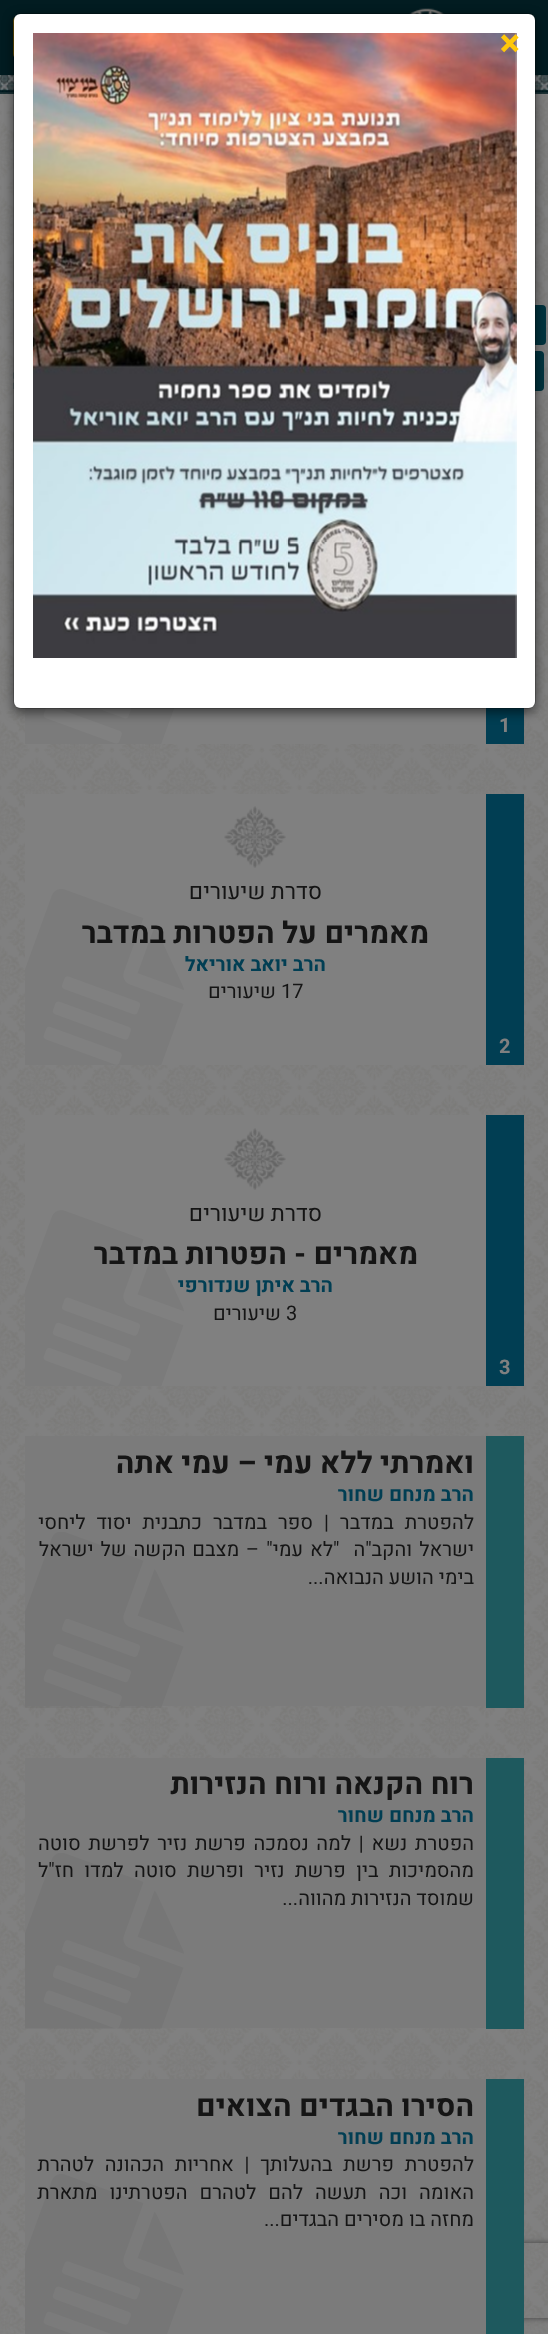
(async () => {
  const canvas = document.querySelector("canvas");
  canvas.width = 548;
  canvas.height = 2334;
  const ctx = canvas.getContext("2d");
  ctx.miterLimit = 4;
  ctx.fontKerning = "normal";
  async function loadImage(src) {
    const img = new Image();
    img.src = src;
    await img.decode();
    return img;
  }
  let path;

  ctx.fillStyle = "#808080";
  ctx.fillRect(0, 0, 548, 2334);
  ctx.fillStyle = "#021c21";
  ctx.fillRect(0, 0, 548, 94);
  ctx.drawImage(await loadImage("img/1.png"), 0, 75, 548, 19);
  ctx.drawImage(await loadImage("img/2.png"), 409, 8, 36, 6);
  ctx.fillStyle = "#806405";
  ctx.beginPath();
  ctx.roundRect(13, 16, 55, 43, 5);
  ctx.fill();
  ctx.drawImage(await loadImage("img/4.png"), 0, 94, 548, 2240);
  ctx.fillStyle = "#01333e";
  ctx.beginPath();
  ctx.roundRect(454, 305, 92, 40, 4);
  ctx.fill();
  ctx.beginPath();
  ctx.roundRect(394, 351, 150, 40, 4);
  ctx.fill();
  ctx.drawImage(await loadImage("img/5.png"), 13, 372, 1, 17);
  ctx.fillStyle = "#808080";
  ctx.fillRect(25, 708, 461, 36);
  ctx.fillStyle = "#013e53";
  ctx.fillRect(486, 708, 38, 36);
  ctx.drawImage(await loadImage("img/6.png"), 25, 708, 149, 36);
  ctx.fillStyle = "rgba(0, 0, 0, 0.5)";
  ctx.filter = "blur(5.5px)";
  ctx.beginPath();
  ctx.roundRect(13, 16, 523, 697, 8);
  ctx.fill();
  ctx.filter = "none";
  ctx.fillStyle = "#ffffff";
  ctx.beginPath();
  ctx.roundRect(14, 14, 521, 694, 6);
  ctx.fill();
  ctx.beginPath();
  ctx.roundRect(13.5, 13.5, 522, 695, 7.5);
  ctx.strokeStyle = "rgba(0, 0, 0, 0.2)";
  ctx.stroke();
  ctx.drawImage(await loadImage("img/3.png"), 33, 33, 484, 625);
  ctx.fillStyle = "#808080";
  ctx.fillRect(25, 794, 461, 271);
  ctx.fillStyle = "#013e53";
  ctx.fillRect(486, 794, 38, 271);
  ctx.drawImage(await loadImage("img/7.png"), 224, 806, 62, 62);
  ctx.fillStyle = "#808080";
  ctx.fillRect(25, 1115, 461, 271);
  ctx.fillStyle = "#013e53";
  ctx.fillRect(486, 1115, 38, 271);
  ctx.drawImage(await loadImage("img/7.png"), 224, 1128, 62, 62);
  ctx.fillStyle = "#7b7b7b";
  ctx.fillRect(25, 1436, 461, 270);
  ctx.fillStyle = "#1e595e";
  ctx.fillRect(486, 1436, 38, 272);
  ctx.drawImage(await loadImage("img/10.png"), 25, 1532, 159, 176);
  ctx.fillStyle = "#7b7b7b";
  ctx.fillRect(25, 1758, 461, 270);
  ctx.fillStyle = "#1e595e";
  ctx.fillRect(486, 1758, 38, 271);
  ctx.drawImage(await loadImage("img/11.png"), 25, 1853, 159, 176);
  ctx.save();
  path = new Path2D("M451 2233H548V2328H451ZM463.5 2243H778.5C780 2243 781 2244 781 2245.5V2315.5C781 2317 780 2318 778.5 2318H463.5C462 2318 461 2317 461 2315.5V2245.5C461 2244 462 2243 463.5 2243Z");
  ctx.clip(path, "evenodd");
  ctx.fillStyle = "#404040";
  ctx.filter = "blur(3px)";
  ctx.beginPath();
  ctx.roundRect(461, 2243, 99, 75, 2.5);
  ctx.fill();
  ctx.filter = "none";
  ctx.restore();
  ctx.fillStyle = "#7b7b7b";
  ctx.fillRect(25, 2079, 461, 255);
  ctx.fillStyle = "#1e595e";
  ctx.fillRect(486, 2079, 38, 255);
  ctx.drawImage(await loadImage("img/12.png"), 25, 2174, 159, 160);
  ctx.font = "bold 38px Heebo";
  ctx.fillStyle = "#ffc809";
  ctx.fillText("×", 499, 56);
  ctx.font = "bold 20px Heebo";
  ctx.fillStyle = "#808080";
  ctx.fillText("1", 499, 732);
  ctx.direction = "rtl";
  ctx.font = "22.5px Heebo";
  ctx.fillStyle = "#151515";
  ctx.fillText("סדרת שיעורים", 322, 899);
  ctx.font = "bold 30px Heebo";
  ctx.fillText("מאמרים על הפטרות במדבר", 429, 943);
  ctx.font = "bold 20px Heebo";
  ctx.fillStyle = "#013e53";
  ctx.fillText("הרב יואב אוריאל", 326, 971);
  ctx.direction = "ltr";
  ctx.font = "20px Heebo";
  ctx.fillStyle = "#151515";
  ctx.fillText("17", 281, 998);
  ctx.direction = "rtl";
  ctx.fillText("שיעורים", 276, 998);
  ctx.drawImage(await loadImage("img/8.png"), 25, 889, 159, 176);
  ctx.direction = "ltr";
  ctx.font = "bold 20px Heebo";
  ctx.fillStyle = "#808080";
  ctx.fillText("2", 499, 1053);
  ctx.direction = "rtl";
  ctx.font = "22.5px Heebo";
  ctx.fillStyle = "#151515";
  ctx.fillText("סדרת שיעורים", 322, 1221);
  ctx.font = "bold 30px Heebo";
  ctx.fillText("מאמרים - הפטרות במדבר", 418, 1264);
  ctx.direction = "ltr";
  ctx.font = "20px Heebo";
  ctx.fillText("3", 286, 1320);
  ctx.direction = "rtl";
  ctx.fillText("שיעורים", 281, 1320);
  ctx.drawImage(await loadImage("img/9.png"), 25, 1210, 159, 176);
  ctx.font = "bold 20px Heebo";
  ctx.fillStyle = "#013e53";
  ctx.fillText("הרב איתן שנדורפי", 333, 1292);
  ctx.direction = "ltr";
  ctx.fillStyle = "#808080";
  ctx.fillText("3", 499, 1374);
  ctx.direction = "rtl";
  ctx.font = "bold 30px Heebo";
  ctx.fillStyle = "#151515";
  ctx.fillText("ואמרתי ללא עמי – עמי אתה", 474, 1473);
  ctx.font = "bold 20px Heebo";
  ctx.fillStyle = "#013e53";
  ctx.fillText("הרב מנחם שחור", 474, 1501);
  ctx.wordSpacing = "6px";
  ctx.font = "20px Heebo";
  ctx.fillStyle = "#151515";
  ctx.fillText("להפטרת במדבר | ספר במדבר כתבנית יסוד ליחסי", 474, 1529);
  ctx.wordSpacing = "2px";
  ctx.fillText("ישראל והקב\"ה  \"לא עמי\" – מצבם הקשה של ישראל", 474, 1556);
  ctx.wordSpacing = "0px";
  ctx.fillText("בימי הושע הנבואה...", 474, 1584);
  ctx.font = "bold 30px Heebo";
  ctx.fillText("רוח הקנאה ורוח הנזירות", 474, 1794);
  ctx.font = "bold 20px Heebo";
  ctx.fillStyle = "#013e53";
  ctx.fillText("הרב מנחם שחור", 474, 1822);
  ctx.wordSpacing = "2.75px";
  ctx.font = "20px Heebo";
  ctx.fillStyle = "#151515";
  ctx.fillText("הפטרת נשא | למה נסמכה פרשת נזיר לפרשת סוטה", 474, 1850);
  ctx.wordSpacing = "5.5px";
  ctx.fillText("מהסמיכות בין פרשת נזיר ופרשת סוטה למדו חז\"ל", 474, 1877);
  ctx.wordSpacing = "0px";
  ctx.fillText("שמוסד הנזירות מהווה...", 474, 1905);
  ctx.font = "bold 30px Heebo";
  ctx.fillText("הסירו הבגדים הצואים", 474, 2116);
  ctx.font = "bold 20px Heebo";
  ctx.fillStyle = "#013e53";
  ctx.fillText("הרב מנחם שחור", 474, 2144);
  ctx.wordSpacing = "5.75px";
  ctx.font = "20px Heebo";
  ctx.fillStyle = "#151515";
  ctx.fillText("להפטרת פרשת בהעלותך | אחריות הכהונה לטהרת", 474, 2171);
  ctx.wordSpacing = "7px";
  ctx.fillText("האומה וכה תעשה להם לטהרם הפטרתינו מתארת", 474, 2199);
  ctx.wordSpacing = "0px";
  ctx.fillText("מחזה בו מסירים הבגדים...", 474, 2226);
})();
